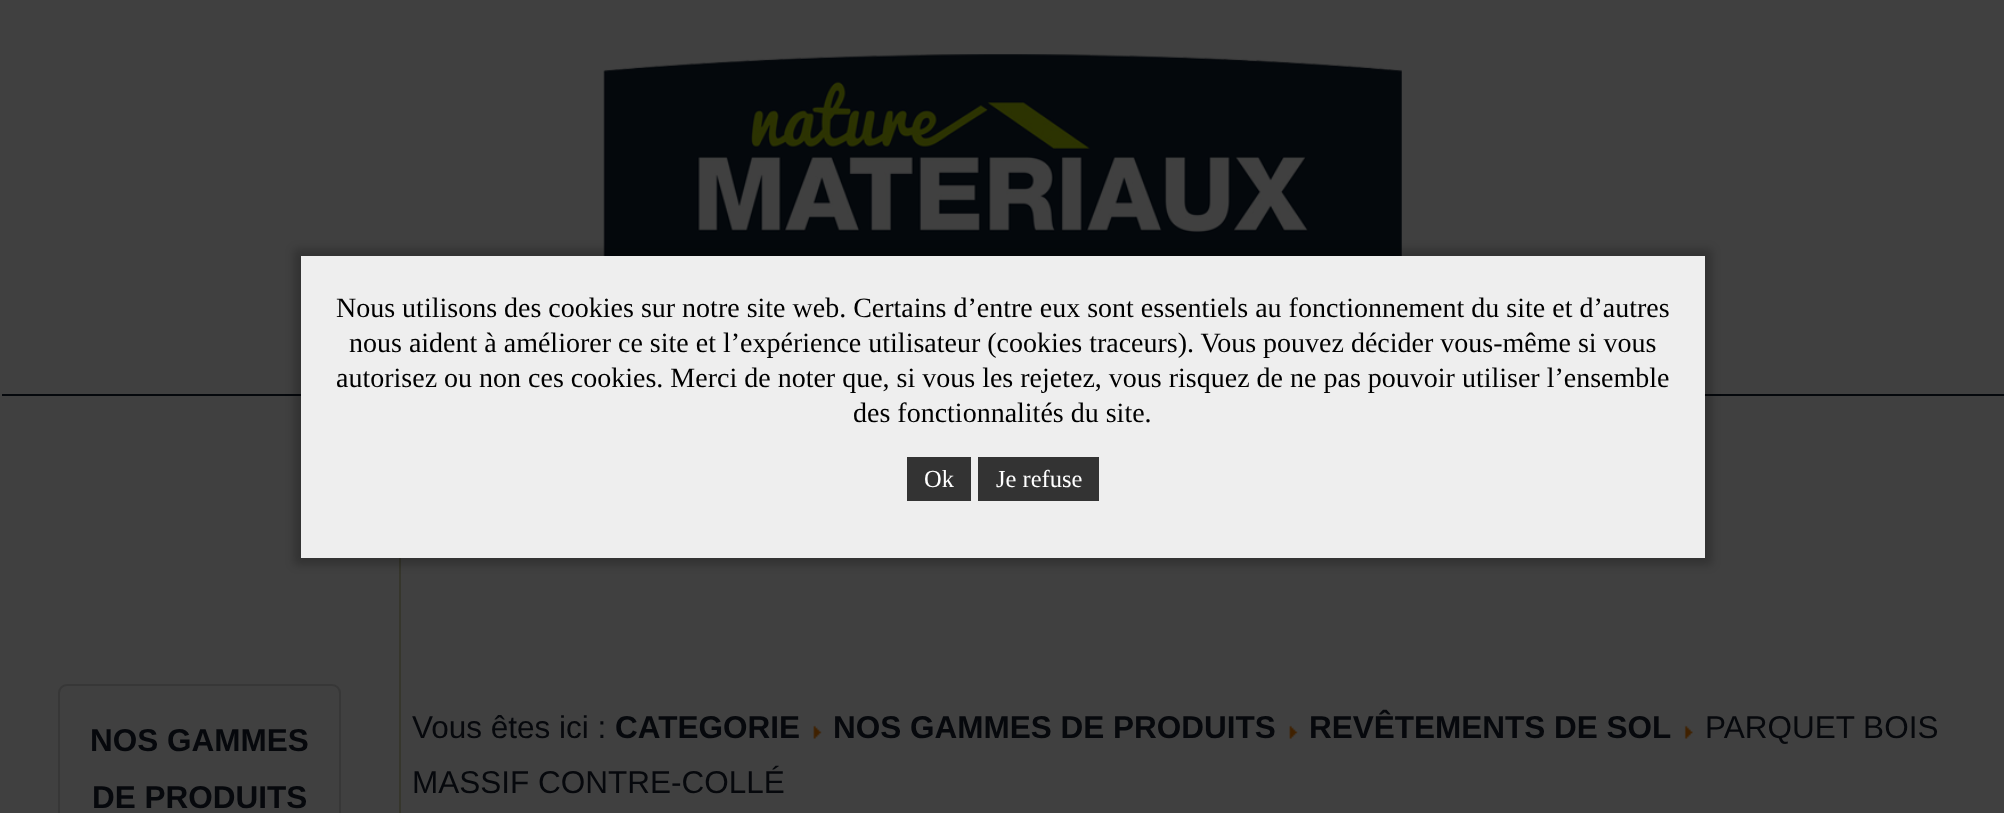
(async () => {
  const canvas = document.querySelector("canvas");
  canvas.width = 2004;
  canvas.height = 813;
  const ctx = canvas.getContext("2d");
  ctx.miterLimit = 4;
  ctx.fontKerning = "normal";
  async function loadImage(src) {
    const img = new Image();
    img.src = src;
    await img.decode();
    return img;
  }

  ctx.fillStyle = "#404040";
  ctx.fillRect(0, 0, 2004, 813);
  ctx.drawImage(await loadImage("img/1.png"), 603, 54, 799, 202);
  ctx.fillStyle = "#05080c";
  ctx.fillRect(2, 394, 2002, 2);
  ctx.fillStyle = "#36362c";
  ctx.fillRect(399, 558, 2, 255);
  ctx.fillStyle = "rgba(0, 0, 0, 0.21)";
  ctx.filter = "blur(4.5px)";
  ctx.beginPath();
  ctx.rect(294, 249, 1418, 316);
  ctx.fill();
  ctx.filter = "none";
  for (const [x, y, w, h, color] of [
    [301, 256, 1404, 302, "#eeeeee"],
    [907, 457, 64, 44, "#333333"],
    [978, 457, 121, 44, "#333333"],
  ]) {
    ctx.fillStyle = color;
    ctx.fillRect(x, y, w, h);
  }
  ctx.beginPath();
  ctx.roundRect(59, 685, 281, 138, 8);
  ctx.strokeStyle = "#373737";
  ctx.lineWidth = 2;
  ctx.stroke();
  ctx.drawImage(await loadImage("img/2.png"), 813, 725, 9, 14);
  ctx.drawImage(await loadImage("img/2.png"), 1289, 725, 9, 14);
  ctx.drawImage(await loadImage("img/3.png"), 1684, 725, 9, 14);
  ctx.font = "28px Liberation Serif";
  ctx.fillStyle = "#000000";
  for (const [text, x, y] of [
    ["Nous utilisons des cookies sur notre site web. Certains d’entre eux sont essentiels au fonctionnement du site et d’autres", 336, 317],
    ["nous aident à améliorer ce site et l’expérience utilisateur (cookies traceurs). Vous pouvez décider vous-même si vous", 349, 352],
    ["autorisez ou non ces cookies. Merci de noter que, si vous les rejetez, vous risquez de ne pas pouvoir utiliser l’ensemble", 336, 387],
    ["des fonctionnalités du site.", 853, 422],
  ]) {
    ctx.fillText(text, x, y);
  }
  ctx.font = "24.5px Liberation Serif";
  ctx.fillStyle = "#ffffff";
  ctx.fillText("Ok", 924, 487);
  ctx.fillText("Je refuse", 996, 487);
  ctx.font = "bold 31.5px Liberation Sans";
  ctx.fillStyle = "#06080c";
  ctx.fillText("NOS GAMMES", 90, 751);
  ctx.fillText("DE PRODUITS", 92, 808);
  ctx.font = "31.5px Liberation Sans";
  ctx.fillText("Vous êtes ici :", 412, 738);
  ctx.font = "bold 31.5px Liberation Sans";
  for (const [text, x, y] of [
    ["CATEGORIE", 615, 738],
    ["NOS GAMMES DE PRODUITS", 833, 738],
    ["REVÊTEMENTS DE SOL", 1309, 738],
  ]) {
    ctx.fillText(text, x, y);
  }
  ctx.font = "31.5px Liberation Sans";
  ctx.fillText("PARQUET BOIS", 1705, 738);
  ctx.fillText("MASSIF CONTRE-COLLÉ", 412, 793);
})();
